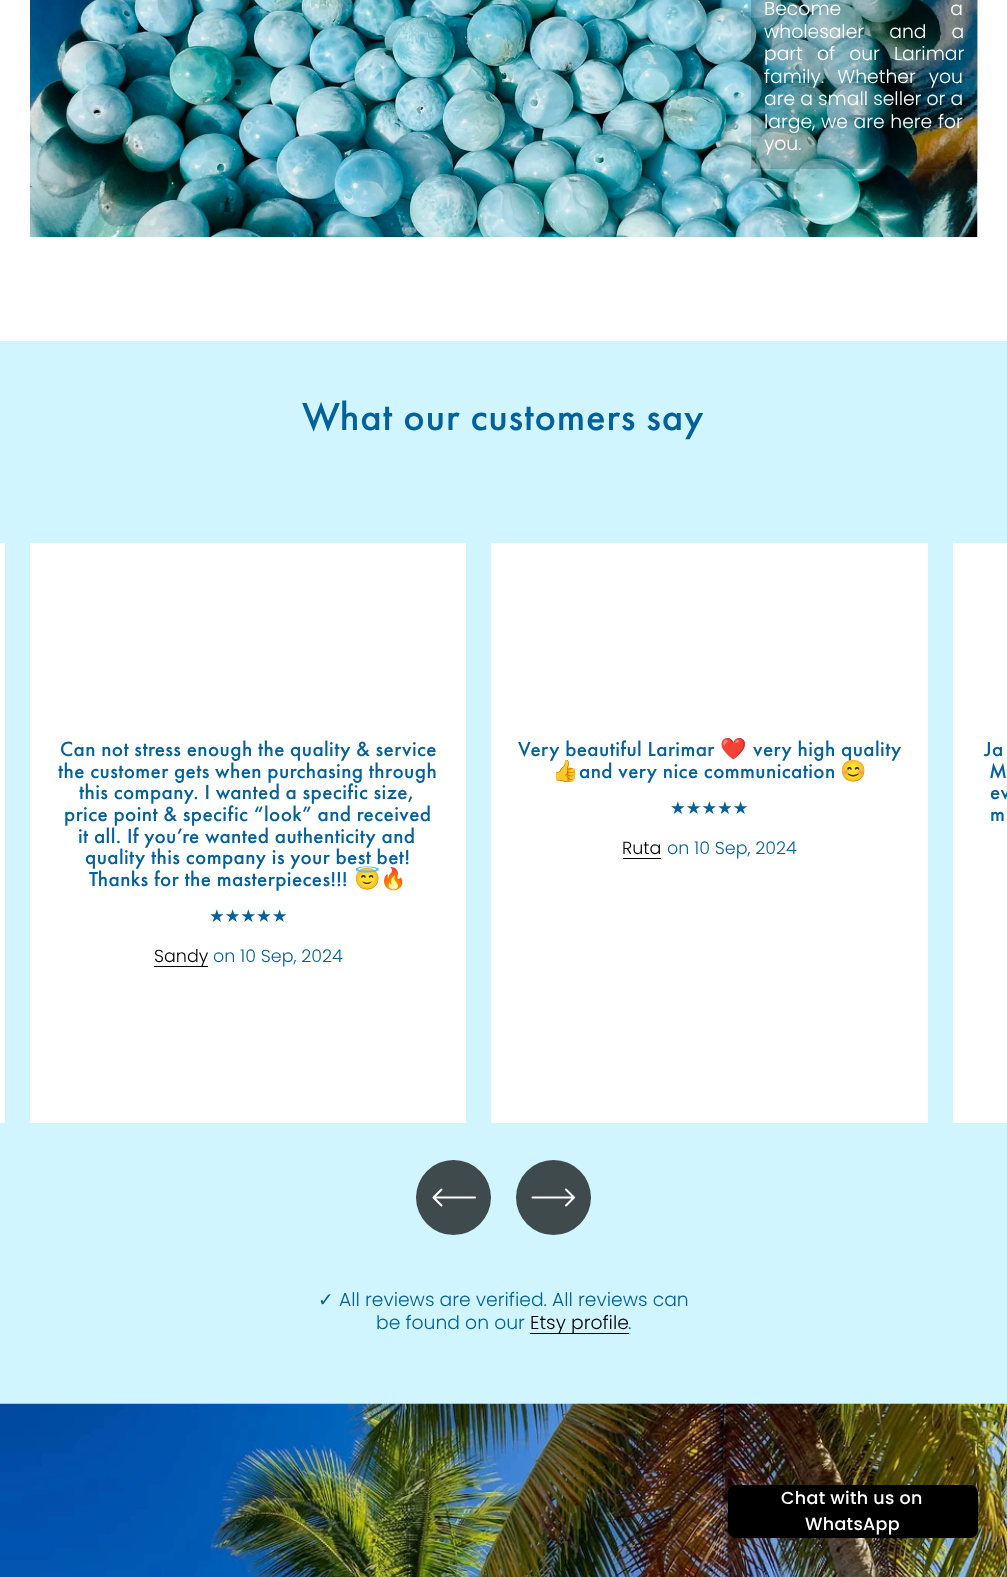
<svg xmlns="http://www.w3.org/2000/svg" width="1007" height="1577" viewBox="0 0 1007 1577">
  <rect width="100%" height="100%" fill="rgb(255,255,255)"/>
  <image x="30" y="0" width="948" height="238" href="pic1.png"/>
  <rect x="751" y="0" width="227" height="169" fill="rgba(0,0,0,0.17)"/>
  <g font-family="Poppins" font-size="18.75" font-weight="300" fill="rgb(255,255,255)">
    <text>
      <tspan x="764" y="15" word-spacing="104">Become a</tspan>
      <tspan x="764" y="38" word-spacing="20">wholesaler and a</tspan>
      <tspan x="764" y="60" word-spacing="9">part of our Larimar</tspan>
      <tspan x="764" y="83" word-spacing="8">family. Whether you</tspan>
      <tspan x="764" y="105">are a small seller or a</tspan>
      <tspan x="764" y="128" word-spacing="0.5">large, we are here for</tspan>
      <tspan x="764" y="150">you.</tspan>
    </text>
  </g>
  <rect x="0" y="341" width="1007" height="1063" fill="rgb(209,245,255)"/>
  <text x="302" y="430" font-family="Futura PT" font-size="40.5" font-weight="500" letter-spacing="0.8" fill="rgb(3,97,155)">What our customers say</text>
  <rect x="0" y="543" width="5" height="580" fill="rgb(255,255,255)"/>
  <rect x="30" y="543" width="436" height="580" fill="rgb(255,255,255)"/>
  <g font-family="Futura PT" font-size="21.2" font-weight="500" letter-spacing="0.4" fill="rgb(3,97,155)">
    <text x="60" y="756">Can not stress enough the quality &amp; service</text>
    <text x="58" y="778">the customer gets when purchasing through</text>
    <text x="79" y="799">this company. I wanted a specific size,</text>
    <text x="64" y="821">price point &amp; specific “look” and received</text>
    <text x="78" y="843">it all. If you’re wanted authenticity and</text>
    <text x="85" y="864">quality this company is your best bet!</text>
    <text x="89" y="886">Thanks for the masterpieces!!!</text>
  </g>
  <text x="354" y="886" font-family="Noto Color Emoji" font-size="21.2" letter-spacing="0.4" fill="rgb(3,97,155)">😇🔥</text>
  <text x="209" y="922" font-family="DejaVu Sans" font-size="17.5" fill="rgb(3,97,155)">★★★★★</text>
  <rect x="154" y="966" width="54" height="1" fill="rgb(0,0,0)"/>
  <text x="154" y="962" font-family="Poppins" font-size="17.5" font-weight="300" fill="rgb(0,0,0)">Sandy</text>
  <text x="213" y="962" font-family="Poppins" font-size="17.5" font-weight="300" fill="rgb(3,97,155)">on 10 Sep, 2024</text>
  <rect x="491" y="543" width="437" height="580" fill="rgb(255,255,255)"/>
  <text x="518" y="756" font-family="Futura PT" font-size="21.2" font-weight="500" letter-spacing="0.4" fill="rgb(3,97,155)">Very beautiful Larimar</text>
  <text x="720" y="756" font-family="Noto Color Emoji" font-size="21.2" letter-spacing="0.4" fill="rgb(3,97,155)">❤️</text>
  <text x="753" y="756" font-family="Futura PT" font-size="21.2" font-weight="500" letter-spacing="0.4" fill="rgb(3,97,155)">very high quality</text>
  <text x="552" y="778" font-family="Noto Color Emoji" font-size="21.2" letter-spacing="0.4" fill="rgb(3,97,155)">👍</text>
  <text x="579" y="778" font-family="Futura PT" font-size="21.2" font-weight="500" letter-spacing="0.4" fill="rgb(3,97,155)">and very nice communication</text>
  <text x="840" y="778" font-family="Noto Color Emoji" font-size="21.2" letter-spacing="0.4" fill="rgb(3,97,155)">😊</text>
  <text x="670" y="814" font-family="DejaVu Sans" font-size="17.5" fill="rgb(3,97,155)">★★★★★</text>
  <text x="622" y="854" font-family="Poppins" font-size="17.5" font-weight="300" fill="rgb(0,0,0)">Ruta</text>
  <rect x="623" y="858" width="38" height="1" fill="rgb(0,0,0)"/>
  <text x="667" y="854" font-family="Poppins" font-size="17.5" font-weight="300" fill="rgb(3,97,155)">on 10 Sep, 2024</text>
  <rect x="953" y="543" width="54" height="580" fill="rgb(255,255,255)"/>
  <g font-family="Futura PT" font-size="21.2" font-weight="500" letter-spacing="0.4" fill="rgb(3,97,155)">
    <text x="984" y="756">Ja</text>
    <text x="989" y="778">M</text>
    <text>
      <tspan x="990" y="799">ev</tspan>
      <tspan x="990" y="821">m</tspan>
    </text>
  </g>
  <circle cx="453.5" cy="1197.5" r="37.5" fill="rgb(63,74,77)"/>
  <path d="M441.5 1205.5L433.5 1197.5L441.5 1189.5M475 1197.5H434.5" fill="none" stroke="rgb(255,255,255)" stroke-width="2" stroke-linecap="round" stroke-linejoin="round"/>
  <circle cx="553.5" cy="1197.5" r="37.5" fill="rgb(63,74,77)"/>
  <path d="M566 1189.5L574 1197.5L566 1205.5M532.5 1197.5H573" fill="none" stroke="rgb(255,255,255)" stroke-width="2" stroke-linecap="round" stroke-linejoin="round"/>
  <text x="318" y="1306" font-family="DejaVu Sans" font-size="18.75" fill="rgb(3,97,155)">✓</text>
  <g font-family="Poppins" font-size="18.75" font-weight="300" fill="rgb(3,97,155)">
    <text x="339" y="1306">All reviews are verified. All reviews can</text>
    <text x="376" y="1329">be found on our</text>
  </g>
  <rect x="530" y="1333" width="99" height="1" fill="rgb(0,0,0)"/>
  <text x="530" y="1329" font-family="Poppins" font-size="18.75" font-weight="300" fill="rgb(0,0,0)">Etsy profile</text>
  <text x="628" y="1329" font-family="Poppins" font-size="18.75" font-weight="300" fill="rgb(3,97,155)">.</text>
  <image x="0" y="1403" width="1007" height="174" href="pic2.png"/>
  <rect x="728" y="1485" width="250" height="53" rx="8" fill="rgb(0,0,0)"/>
  <g font-family="Poppins" font-size="17.5" font-weight="500" letter-spacing="0.3" fill="rgb(255,255,255)">
    <text x="781" y="1504">Chat with us on</text>
    <text x="805" y="1530">WhatsApp</text>
  </g>
</svg>
